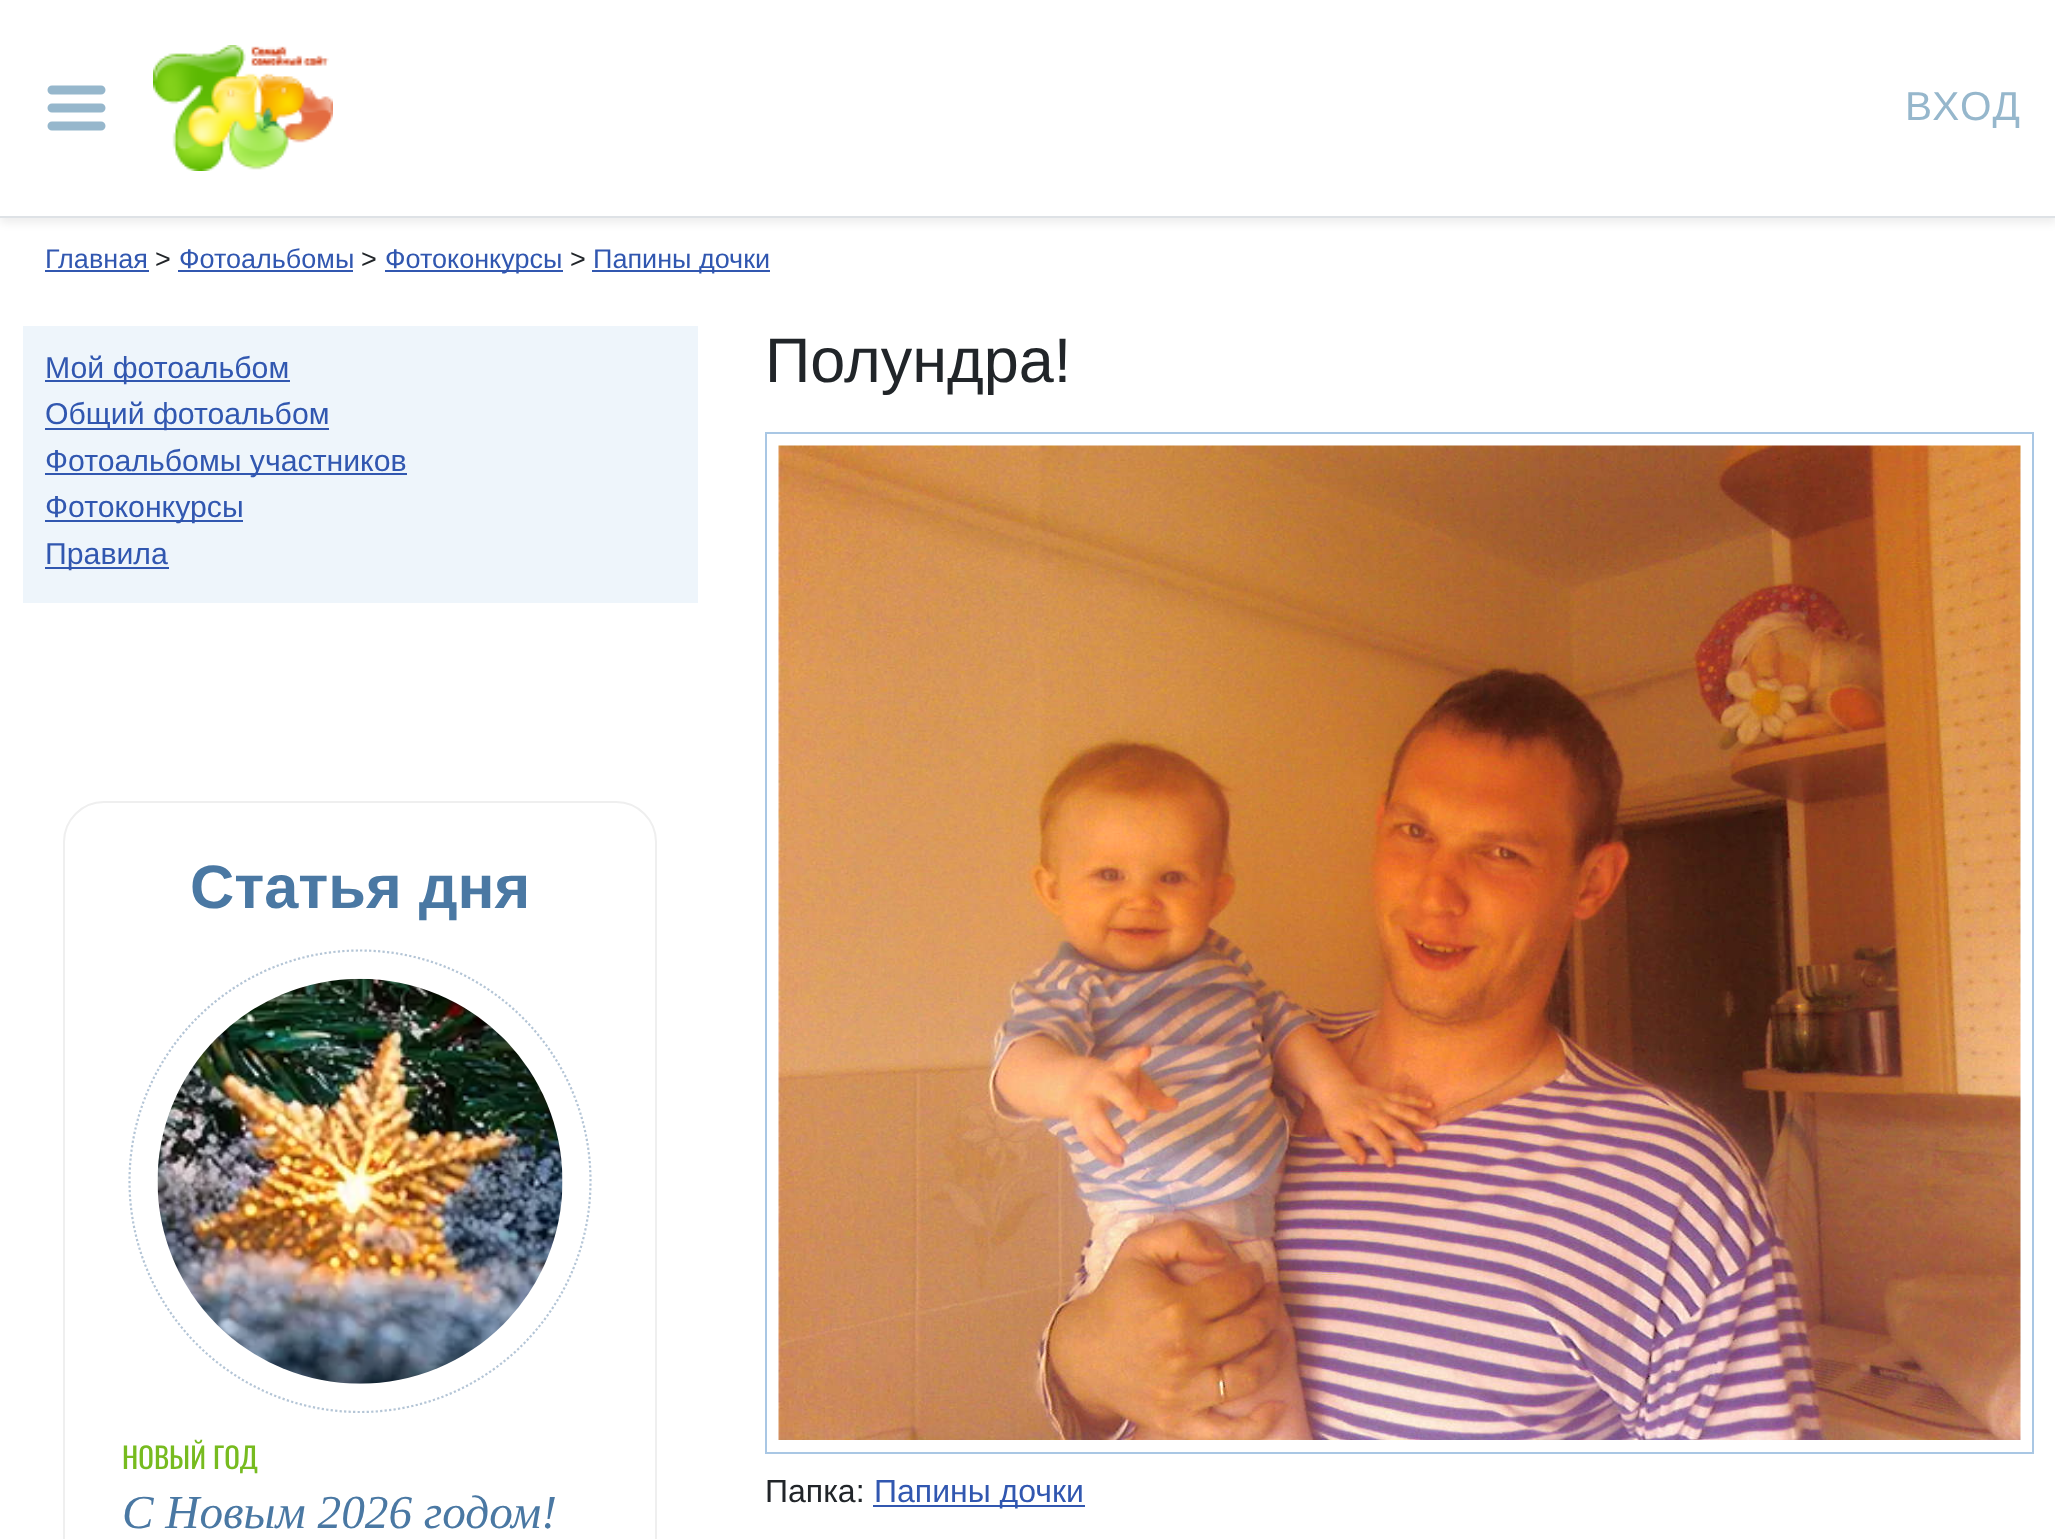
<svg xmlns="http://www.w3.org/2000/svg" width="2055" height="1539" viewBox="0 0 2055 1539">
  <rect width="100%" height="100%" fill="rgb(255,255,255)"/>
  <rect x="0" y="5" width="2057" height="218" fill="rgba(0,0,0,0.07)" filter="blur(4.5px)"/>
  <rect x="0" y="0" width="2055" height="216" fill="rgb(255,255,255)"/>
  <rect x="0" y="216" width="2055" height="2" fill="rgb(222,226,230)"/>
  <path d="M52 90H101M52 108H101M52 126H101" fill="none" stroke="rgb(150,183,204)" stroke-width="9" stroke-linecap="round"/>
  <image x="153" y="45" width="180" height="126" href="pic1.png"/>
  <text x="1905" y="120" font-family="Liberation Sans" font-size="40.5" letter-spacing="2" fill="rgb(150,183,204)">ВХОД</text>
  <text x="45" y="268" font-family="Liberation Sans" font-size="27" fill="rgb(49,87,176)">Главная</text>
  <rect x="45" y="270" width="104" height="2" fill="rgb(49,87,176)"/>
  <text x="155" y="268" font-family="Liberation Sans" font-size="27" fill="rgb(33,37,41)">&gt;</text>
  <text x="179" y="268" font-family="Liberation Sans" font-size="27" fill="rgb(49,87,176)">Фотоальбомы</text>
  <rect x="178" y="270" width="175" height="2" fill="rgb(49,87,176)"/>
  <text x="361" y="268" font-family="Liberation Sans" font-size="27" fill="rgb(33,37,41)">&gt;</text>
  <rect x="385" y="270" width="178" height="2" fill="rgb(49,87,176)"/>
  <text x="385" y="268" font-family="Liberation Sans" font-size="27" fill="rgb(49,87,176)">Фотоконкурсы</text>
  <text x="570" y="268" font-family="Liberation Sans" font-size="27" fill="rgb(33,37,41)">&gt;</text>
  <rect x="592" y="270" width="178" height="2" fill="rgb(49,87,176)"/>
  <text x="593" y="268" font-family="Liberation Sans" font-size="27" fill="rgb(49,87,176)">Папины дочки</text>
  <rect x="23" y="326" width="675" height="277" fill="rgb(238,245,251)"/>
  <rect x="45" y="380" width="245" height="2" fill="rgb(49,87,176)"/>
  <text x="45" y="378" font-family="Liberation Sans" font-size="30.25" fill="rgb(49,87,176)">Мой фотоальбом</text>
  <rect x="45" y="428" width="284" height="2" fill="rgb(49,87,176)"/>
  <text x="45" y="424" font-family="Liberation Sans" font-size="30.25" fill="rgb(49,87,176)">Общий фотоальбом</text>
  <rect x="45" y="473" width="362" height="2" fill="rgb(49,87,176)"/>
  <text x="45" y="471" font-family="Liberation Sans" font-size="30.25" fill="rgb(49,87,176)">Фотоальбомы участников</text>
  <rect x="45" y="520" width="198" height="2" fill="rgb(49,87,176)"/>
  <text x="45" y="517" font-family="Liberation Sans" font-size="30.25" fill="rgb(49,87,176)">Фотоконкурсы</text>
  <rect x="45" y="567" width="124" height="2" fill="rgb(49,87,176)"/>
  <text x="45" y="564" font-family="Liberation Sans" font-size="30.25" fill="rgb(49,87,176)">Правила</text>
  <rect x="64" y="802" width="592" height="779" rx="40" fill="none" stroke="rgb(239,239,239)" stroke-width="2"/>
  <text x="190" y="908" font-family="Liberation Sans" font-size="61.25" font-weight="bold" fill="rgb(74,120,163)">Статья дня</text>
  <path d="M360 950.5C487.5 950.5 590.5 1054 590.5 1181C590.5 1308.5 487.5 1412 360 1412C232.5 1412 129.5 1308.5 129.5 1181C129.5 1054 232.5 950.5 360 950.5Z" fill="none" stroke="rgb(180,197,214)" stroke-width="2.2" stroke-dasharray="2.25 2.25"/>
  <image x="157" y="978" width="406" height="406" href="pic2.png"/>
  <g font-family="Oswald" font-size="29" fill="rgb(119,187,31)">
    <text x="122" y="1469">НОВЫЙ</text>
    <text x="213" y="1469">ГОД</text>
  </g>
  <text x="122" y="1528" font-family="Liberation Serif" font-size="47.25" font-style="italic" fill="rgb(74,120,163)">С Новым 2026 годом!</text>
  <text x="765" y="382" font-family="Liberation Sans" font-size="63" fill="rgb(33,37,41)">Полундра!</text>
  <rect x="766" y="433" width="1267" height="1020" fill="none" stroke="rgb(169,199,228)" stroke-width="2"/>
  <image x="778" y="445" width="1243" height="995" href="pic3.png"/>
  <text x="765" y="1502" font-family="Liberation Sans" font-size="32" fill="rgb(33,37,41)">Папка:</text>
  <rect x="873" y="1505" width="212" height="2" fill="rgb(49,87,176)"/>
  <text x="874" y="1502" font-family="Liberation Sans" font-size="32" fill="rgb(49,87,176)">Папины дочки</text>
</svg>
